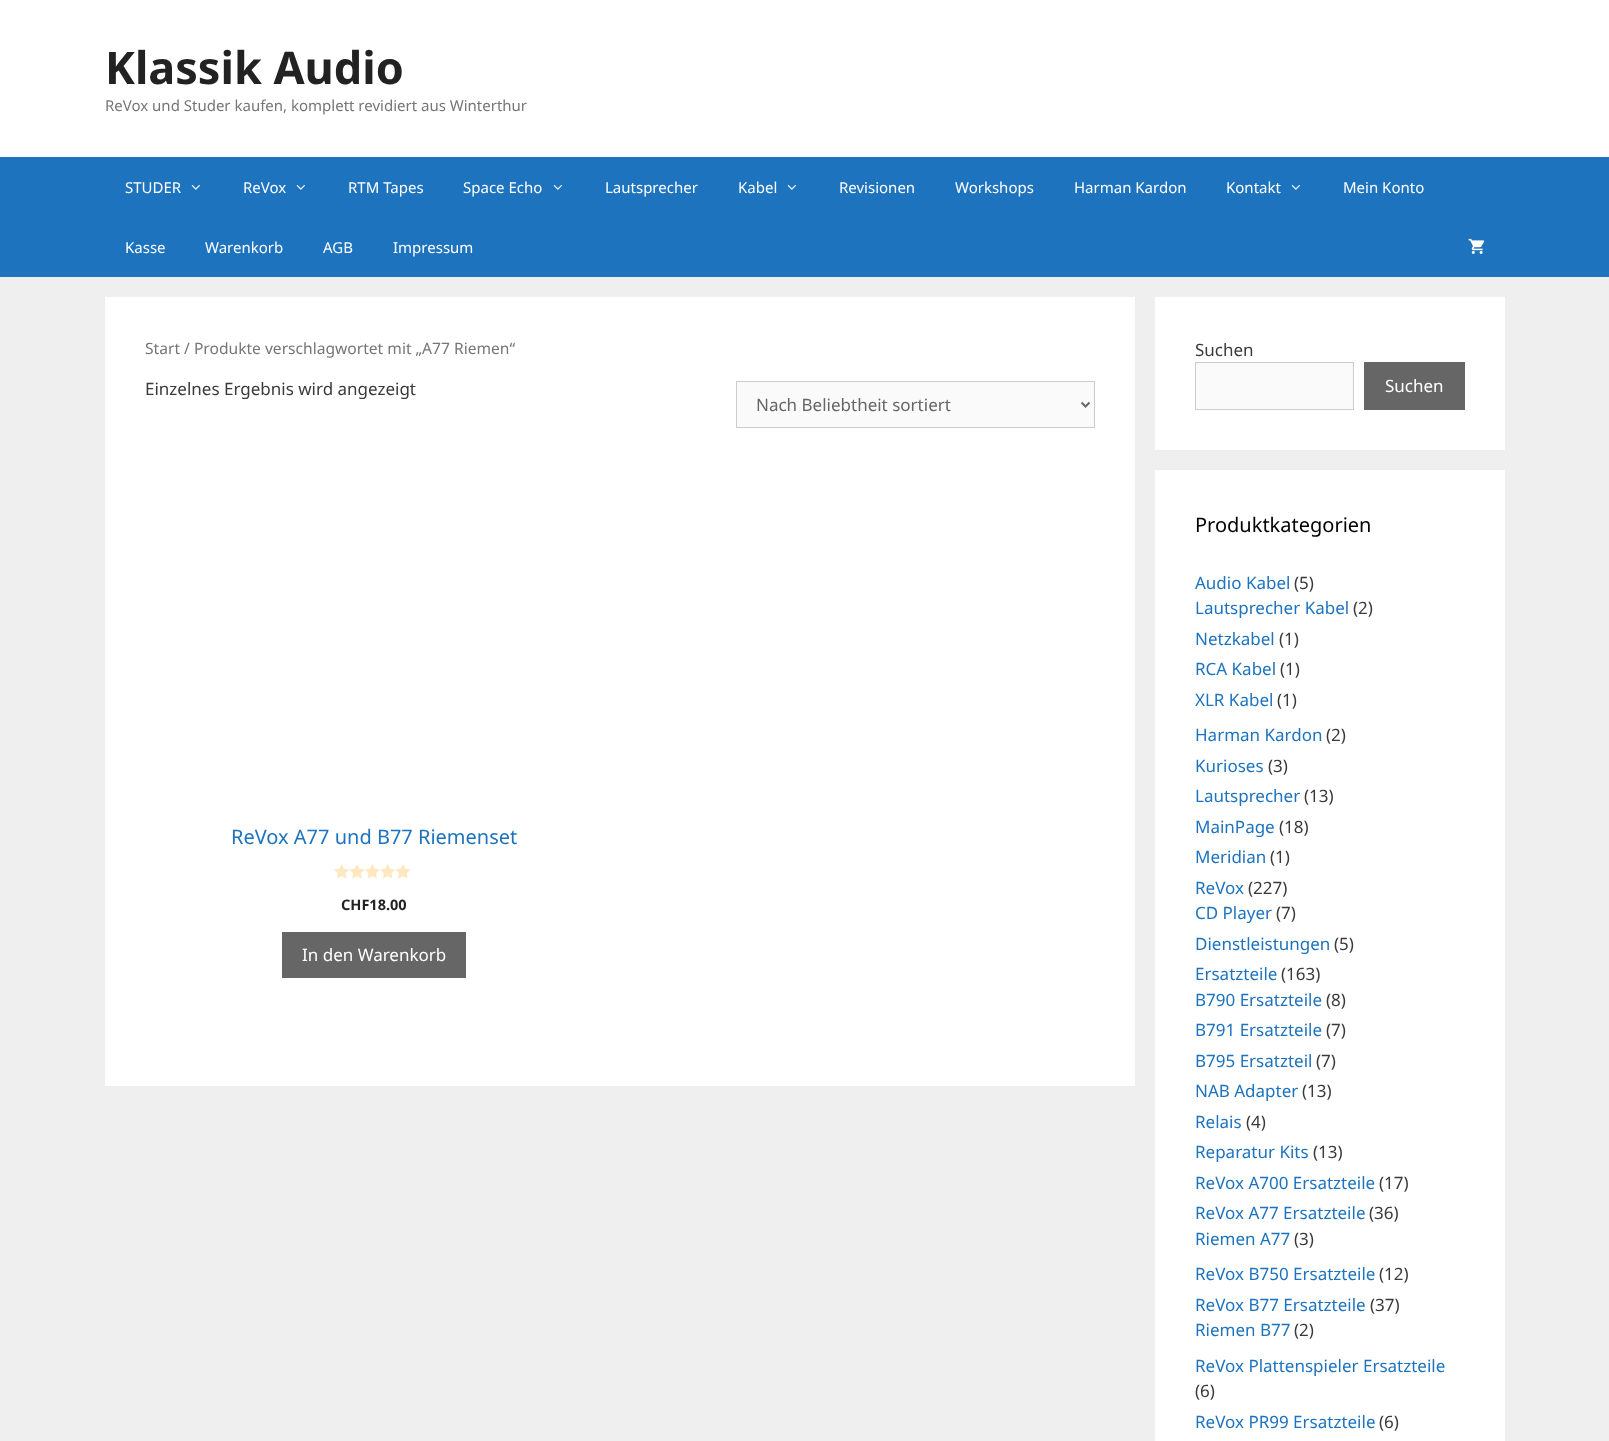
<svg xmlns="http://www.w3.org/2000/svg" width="1609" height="1441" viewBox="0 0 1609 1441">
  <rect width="100%" height="100%" fill="rgb(239,239,239)"/>
  <rect x="0" y="0" width="1609" height="157" fill="rgb(255,255,255)"/>
  <text x="105" y="84" font-family="Noto Sans" font-size="45" font-weight="bold" fill="rgb(34,34,34)">Klassik Audio</text>
  <text x="105" y="111" font-family="Noto Sans" font-size="15" fill="rgb(118,118,118)">ReVox und Studer kaufen, komplett revidiert aus Winterthur</text>
  <rect x="0" y="157" width="1609" height="120" fill="rgb(30,115,190)"/>
  <text x="125" y="193" font-family="Noto Sans" font-size="15" fill="rgb(255,255,255)">STUDER</text>
  <image x="191" y="185" width="9" height="5" href="pic1.png"/>
  <text x="243" y="193" font-family="Noto Sans" font-size="15" fill="rgb(255,255,255)">ReVox</text>
  <image x="296" y="185" width="9" height="5" href="pic1.png"/>
  <g font-family="Noto Sans" font-size="15" fill="rgb(255,255,255)">
    <text x="348" y="193">RTM Tapes</text>
    <text x="463" y="193">Space Echo</text>
  </g>
  <image x="553" y="185" width="9" height="5" href="pic1.png"/>
  <g font-family="Noto Sans" font-size="15" fill="rgb(255,255,255)">
    <text x="605" y="193">Lautsprecher</text>
    <text x="738" y="193">Kabel</text>
  </g>
  <image x="787" y="185" width="9" height="5" href="pic1.png"/>
  <g font-family="Noto Sans" font-size="15" fill="rgb(255,255,255)">
    <text x="839" y="193">Revisionen</text>
    <text x="955" y="193">Workshops</text>
    <text x="1074" y="193">Harman Kardon</text>
    <text x="1226" y="193">Kontakt</text>
  </g>
  <image x="1291" y="185" width="9" height="5" href="pic1.png"/>
  <g font-family="Noto Sans" font-size="15" fill="rgb(255,255,255)">
    <text x="1343" y="193">Mein Konto</text>
    <text x="125" y="253">Kasse</text>
    <text x="205" y="253">Warenkorb</text>
    <text x="323" y="253">AGB</text>
    <text x="393" y="253">Impressum</text>
  </g>
  <image x="1468" y="238" width="17" height="16" href="pic2.png"/>
  <rect x="105" y="297" width="1030" height="789" fill="rgb(255,255,255)"/>
  <text x="145" y="354" font-family="Noto Sans" font-size="15.6" fill="rgb(118,118,118)">Start / Produkte verschlagwortet mit „A77 Riemen“</text>
  <text x="145" y="395" font-family="Noto Sans" font-size="17" fill="rgb(58,58,58)">Einzelnes Ergebnis wird angezeigt</text>
  <rect x="736.5" y="381.5" width="358" height="46" fill="rgb(250,250,250)" stroke="rgb(204,204,204)"/>
  <path d="M1081.5 402.5L1085.5 406.5L1089.5 402.5" fill="none" stroke="rgb(102,102,102)" stroke-width="2"/>
  <text x="756" y="411" font-family="Noto Sans" font-size="17" fill="rgb(102,102,102)">Nach Beliebtheit sortiert</text>
  <text x="231" y="844" font-family="Noto Sans" font-size="20" fill="rgb(30,115,190)">ReVox A77 und B77 Riemenset</text>
  <image x="334" y="864" width="77" height="15" href="pic3.png"/>
  <text x="341" y="910" font-family="Noto Sans" font-size="14.5" font-weight="bold" fill="rgb(34,34,34)">CHF18.00</text>
  <rect x="282" y="932" width="184" height="46" fill="rgb(102,102,102)"/>
  <text x="302" y="961" font-family="Noto Sans" font-size="17" fill="rgb(255,255,255)">In den Warenkorb</text>
  <rect x="1155" y="297" width="350" height="153" fill="rgb(255,255,255)"/>
  <text x="1195" y="356" font-family="Noto Sans" font-size="17" fill="rgb(58,58,58)">Suchen</text>
  <rect x="1195.5" y="362.5" width="158" height="47" fill="rgb(250,250,250)" stroke="rgb(204,204,204)"/>
  <rect x="1364" y="362" width="101" height="48" fill="rgb(102,102,102)"/>
  <text x="1385" y="392" font-family="Noto Sans" font-size="17" fill="rgb(255,255,255)">Suchen</text>
  <rect x="1155" y="470" width="350" height="971" fill="rgb(255,255,255)"/>
  <text x="1195" y="532" font-family="Noto Sans" font-size="20" fill="rgb(0,0,0)">Produktkategorien</text>
  <text x="1195" y="589" font-family="Noto Sans" font-size="17" fill="rgb(30,115,190)">Audio Kabel</text>
  <text x="1294" y="589" font-family="Noto Sans" font-size="17" fill="rgb(58,58,58)">(5)</text>
  <text x="1195" y="614" font-family="Noto Sans" font-size="17" fill="rgb(30,115,190)">Lautsprecher Kabel</text>
  <text x="1353" y="614" font-family="Noto Sans" font-size="17" fill="rgb(58,58,58)">(2)</text>
  <text x="1195" y="645" font-family="Noto Sans" font-size="17" fill="rgb(30,115,190)">Netzkabel</text>
  <text x="1279" y="645" font-family="Noto Sans" font-size="17" fill="rgb(58,58,58)">(1)</text>
  <text x="1195" y="675" font-family="Noto Sans" font-size="17" fill="rgb(30,115,190)">RCA Kabel</text>
  <text x="1280" y="675" font-family="Noto Sans" font-size="17" fill="rgb(58,58,58)">(1)</text>
  <text x="1195" y="706" font-family="Noto Sans" font-size="17" fill="rgb(30,115,190)">XLR Kabel</text>
  <text x="1277" y="706" font-family="Noto Sans" font-size="17" fill="rgb(58,58,58)">(1)</text>
  <text x="1195" y="741" font-family="Noto Sans" font-size="17" fill="rgb(30,115,190)">Harman Kardon</text>
  <text x="1326" y="741" font-family="Noto Sans" font-size="17" fill="rgb(58,58,58)">(2)</text>
  <text x="1195" y="772" font-family="Noto Sans" font-size="17" fill="rgb(30,115,190)">Kurioses</text>
  <text x="1268" y="772" font-family="Noto Sans" font-size="17" fill="rgb(58,58,58)">(3)</text>
  <text x="1195" y="802" font-family="Noto Sans" font-size="17" fill="rgb(30,115,190)">Lautsprecher</text>
  <text x="1304" y="802" font-family="Noto Sans" font-size="17" fill="rgb(58,58,58)">(13)</text>
  <text x="1195" y="833" font-family="Noto Sans" font-size="17" fill="rgb(30,115,190)">MainPage</text>
  <text x="1279" y="833" font-family="Noto Sans" font-size="17" fill="rgb(58,58,58)">(18)</text>
  <text x="1195" y="863" font-family="Noto Sans" font-size="17" fill="rgb(30,115,190)">Meridian</text>
  <text x="1270" y="863" font-family="Noto Sans" font-size="17" fill="rgb(58,58,58)">(1)</text>
  <text x="1195" y="894" font-family="Noto Sans" font-size="17" fill="rgb(30,115,190)">ReVox</text>
  <text x="1248" y="894" font-family="Noto Sans" font-size="17" fill="rgb(58,58,58)">(227)</text>
  <text x="1195" y="919" font-family="Noto Sans" font-size="17" fill="rgb(30,115,190)">CD Player</text>
  <text x="1276" y="919" font-family="Noto Sans" font-size="17" fill="rgb(58,58,58)">(7)</text>
  <text x="1195" y="950" font-family="Noto Sans" font-size="17" fill="rgb(30,115,190)">Dienstleistungen</text>
  <text x="1334" y="950" font-family="Noto Sans" font-size="17" fill="rgb(58,58,58)">(5)</text>
  <text x="1195" y="980" font-family="Noto Sans" font-size="17" fill="rgb(30,115,190)">Ersatzteile</text>
  <text x="1281" y="980" font-family="Noto Sans" font-size="17" fill="rgb(58,58,58)">(163)</text>
  <text x="1195" y="1006" font-family="Noto Sans" font-size="17" fill="rgb(30,115,190)">B790 Ersatzteile</text>
  <text x="1326" y="1006" font-family="Noto Sans" font-size="17" fill="rgb(58,58,58)">(8)</text>
  <text x="1195" y="1036" font-family="Noto Sans" font-size="17" fill="rgb(30,115,190)">B791 Ersatzteile</text>
  <text x="1326" y="1036" font-family="Noto Sans" font-size="17" fill="rgb(58,58,58)">(7)</text>
  <text x="1195" y="1067" font-family="Noto Sans" font-size="17" fill="rgb(30,115,190)">B795 Ersatzteil</text>
  <text x="1316" y="1067" font-family="Noto Sans" font-size="17" fill="rgb(58,58,58)">(7)</text>
  <text x="1195" y="1097" font-family="Noto Sans" font-size="17" fill="rgb(30,115,190)">NAB Adapter</text>
  <text x="1302" y="1097" font-family="Noto Sans" font-size="17" fill="rgb(58,58,58)">(13)</text>
  <text x="1195" y="1128" font-family="Noto Sans" font-size="17" fill="rgb(30,115,190)">Relais</text>
  <text x="1246" y="1128" font-family="Noto Sans" font-size="17" fill="rgb(58,58,58)">(4)</text>
  <text x="1195" y="1158" font-family="Noto Sans" font-size="17" fill="rgb(30,115,190)">Reparatur Kits</text>
  <text x="1313" y="1158" font-family="Noto Sans" font-size="17" fill="rgb(58,58,58)">(13)</text>
  <text x="1195" y="1189" font-family="Noto Sans" font-size="17" fill="rgb(30,115,190)">ReVox A700 Ersatzteile</text>
  <text x="1379" y="1189" font-family="Noto Sans" font-size="17" fill="rgb(58,58,58)">(17)</text>
  <text x="1195" y="1219" font-family="Noto Sans" font-size="17" fill="rgb(30,115,190)">ReVox A77 Ersatzteile</text>
  <text x="1369" y="1219" font-family="Noto Sans" font-size="17" fill="rgb(58,58,58)">(36)</text>
  <text x="1195" y="1245" font-family="Noto Sans" font-size="17" fill="rgb(30,115,190)">Riemen A77</text>
  <text x="1294" y="1245" font-family="Noto Sans" font-size="17" fill="rgb(58,58,58)">(3)</text>
  <text x="1195" y="1280" font-family="Noto Sans" font-size="17" fill="rgb(30,115,190)">ReVox B750 Ersatzteile</text>
  <text x="1379" y="1280" font-family="Noto Sans" font-size="17" fill="rgb(58,58,58)">(12)</text>
  <text x="1195" y="1311" font-family="Noto Sans" font-size="17" fill="rgb(30,115,190)">ReVox B77 Ersatzteile</text>
  <text x="1370" y="1311" font-family="Noto Sans" font-size="17" fill="rgb(58,58,58)">(37)</text>
  <text x="1195" y="1336" font-family="Noto Sans" font-size="17" fill="rgb(30,115,190)">Riemen B77</text>
  <text x="1294" y="1336" font-family="Noto Sans" font-size="17" fill="rgb(58,58,58)">(2)</text>
  <text x="1195" y="1372" font-family="Noto Sans" font-size="17" fill="rgb(30,115,190)">ReVox Plattenspieler Ersatzteile</text>
  <text x="1195" y="1397" font-family="Noto Sans" font-size="17" fill="rgb(58,58,58)">(6)</text>
  <text x="1195" y="1428" font-family="Noto Sans" font-size="17" fill="rgb(30,115,190)">ReVox PR99 Ersatzteile</text>
  <text x="1379" y="1428" font-family="Noto Sans" font-size="17" fill="rgb(58,58,58)">(6)</text>
</svg>
